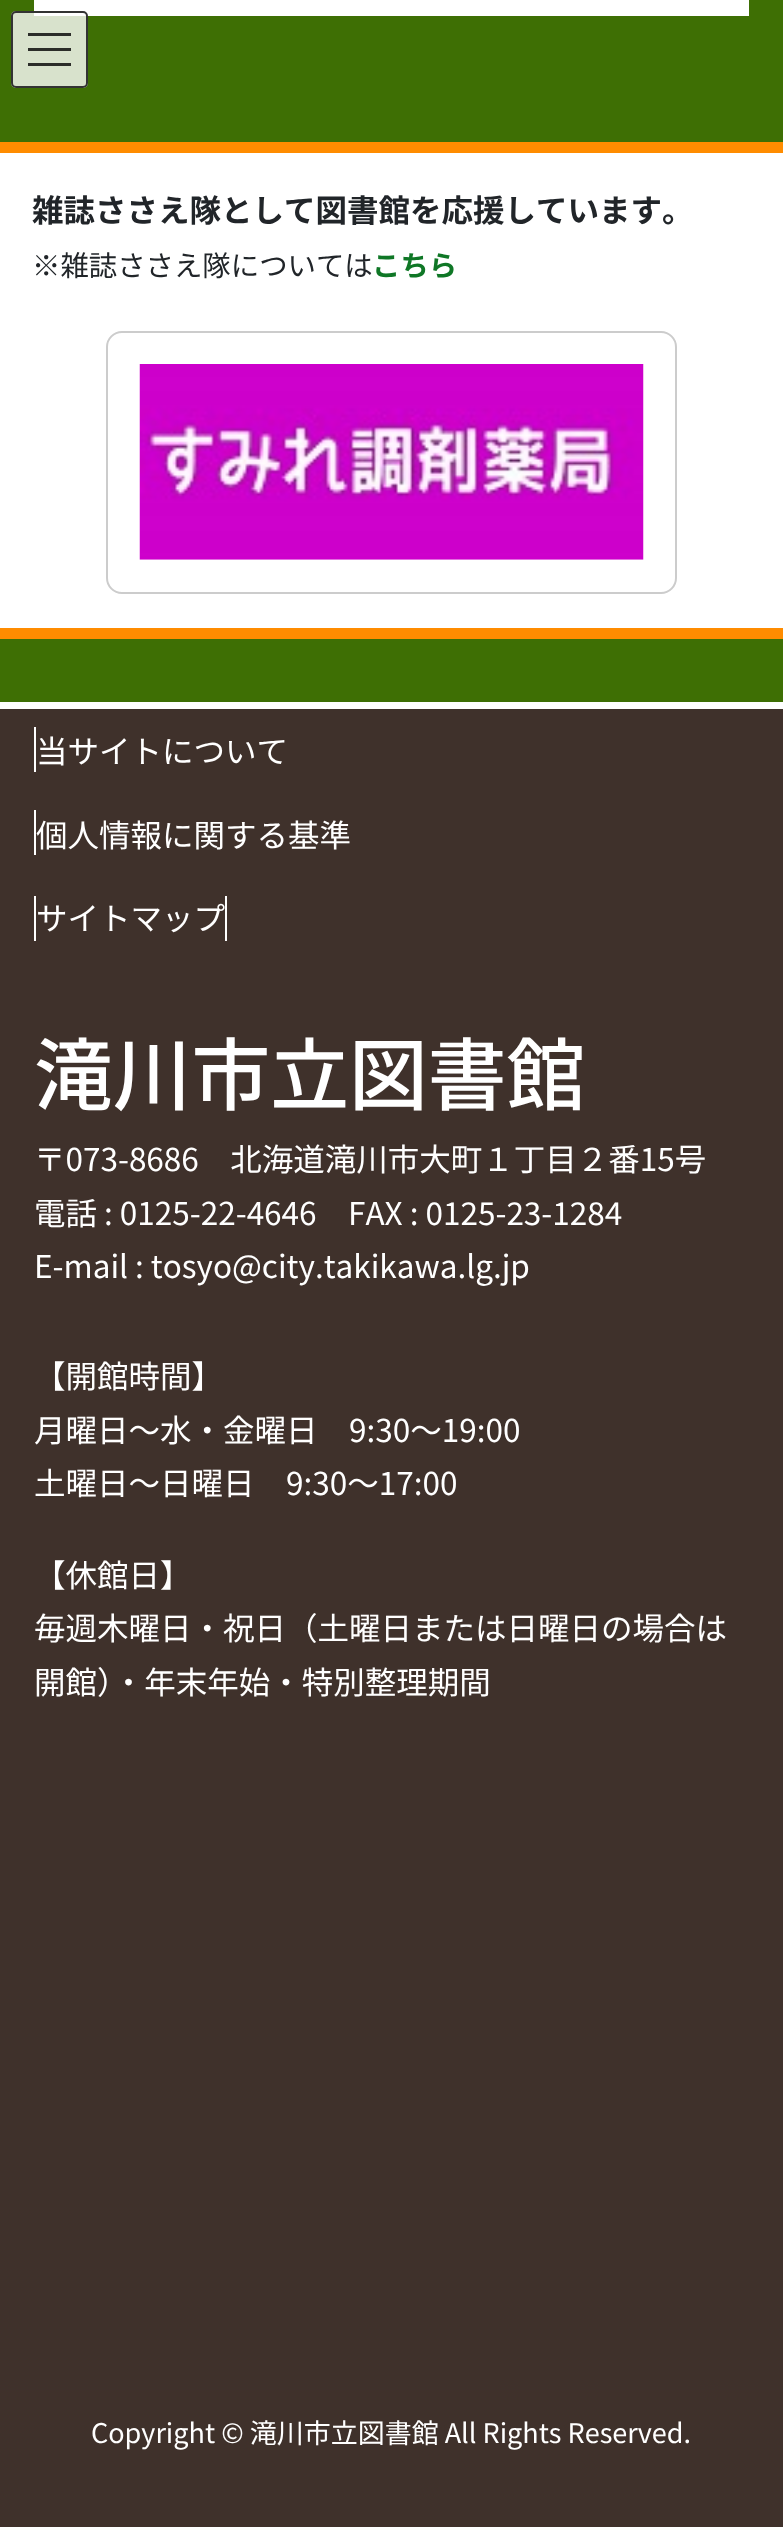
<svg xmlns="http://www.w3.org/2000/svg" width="783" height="2527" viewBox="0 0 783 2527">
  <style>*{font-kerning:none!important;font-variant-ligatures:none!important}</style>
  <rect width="100%" height="100%" fill="rgb(62,111,4)"/>
  <rect x="34" y="0" width="715" height="16" fill="rgb(255,255,255)"/>
  <rect x="11" y="11" width="77" height="77" rx="5" fill="rgba(255,255,255,0.8)"/>
  <rect x="28" y="33" width="43" height="3" fill="rgb(43,45,41)"/>
  <rect x="28" y="48" width="43" height="3" fill="rgb(43,45,41)"/>
  <rect x="28" y="63" width="43" height="3" fill="rgb(43,45,41)"/>
  <rect x="12" y="12" width="75" height="75" rx="4" fill="none" stroke="rgb(51,51,51)" stroke-width="2"/>
  <rect x="0" y="153" width="783" height="475" fill="rgb(255,255,255)"/>
  <rect x="0" y="142" width="783" height="11" fill="rgb(255,140,0)"/>
  <rect x="0" y="628" width="783" height="11" fill="rgb(255,140,0)"/>
  <text x="32" y="222" font-family="Noto Sans JP" font-size="31.5" font-weight="bold" fill="rgb(33,37,41)">雑誌ささえ隊として図書館を応援しています。</text>
  <text x="32" y="276" font-family="Noto Sans JP" font-size="28.4" fill="rgb(33,37,41)">※雑誌ささえ隊については</text>
  <text x="372" y="276" font-family="Noto Sans JP" font-size="28.4" font-weight="bold" fill="rgb(15,119,38)">こちら</text>
  <rect x="107" y="332" width="569" height="261" rx="15" fill="none" stroke="rgb(204,204,204)" stroke-width="2"/>
  <image x="139" y="364" width="505" height="196" href="pic1.png"/>
  <rect x="0" y="709" width="783" height="1818" fill="rgb(63,49,43)"/>
  <rect x="0" y="702" width="783" height="7" fill="rgb(255,255,255)"/>
  <text x="36" y="763" font-family="Noto Sans JP" font-size="31.5" fill="rgb(255,255,255)">当サイトについて</text>
  <rect x="34" y="727" width="2" height="45" fill="rgb(255,255,255)"/>
  <text x="36" y="847" font-family="Noto Sans JP" font-size="31.5" fill="rgb(255,255,255)">個人情報に関する基準</text>
  <rect x="34" y="810" width="2" height="45" fill="rgb(255,255,255)"/>
  <text x="36" y="930" font-family="Noto Sans JP" font-size="31.5" fill="rgb(255,255,255)">サイトマップ</text>
  <rect x="225" y="896" width="2" height="45" fill="rgb(255,255,255)"/>
  <rect x="34" y="896" width="2" height="45" fill="rgb(255,255,255)"/>
  <text x="34" y="1104" font-family="Noto Sans JP" font-size="78.75" font-weight="500" fill="rgb(255,255,255)">滝川市立図書館</text>
  <g font-family="Noto Sans JP" font-size="31.5" fill="rgb(255,255,255)">
    <text>
      <tspan x="34" y="1171">〒073-8686　北海道滝川市大町１丁目２番15号</tspan>
      <tspan x="34" y="1225">電話 : 0125-22-4646　FAX : 0125-23-1284</tspan>
      <tspan x="34" y="1278">E-mail : tosyo@city.takikawa.lg.jp</tspan>
    </text>
    <text>
      <tspan x="34" y="1388">【開館時間】</tspan>
      <tspan x="34" y="1442">月曜日～水・金曜日　9:30～19:00</tspan>
      <tspan x="34" y="1495">土曜日～日曜日　9:30～17:00</tspan>
    </text>
    <text>
      <tspan x="34" y="1587">【休館日】</tspan>
      <tspan x="34" y="1640">毎週木曜日・祝日（土曜日または日曜日の場合は</tspan>
      <tspan x="34" y="1694">開館）・年末年始・特別整理期間</tspan>
    </text>
  </g>
  <text x="91" y="2443" font-family="Noto Sans JP" font-size="27" fill="rgb(255,255,255)">Copyright © 滝川市立図書館 All Rights Reserved.</text>
</svg>
